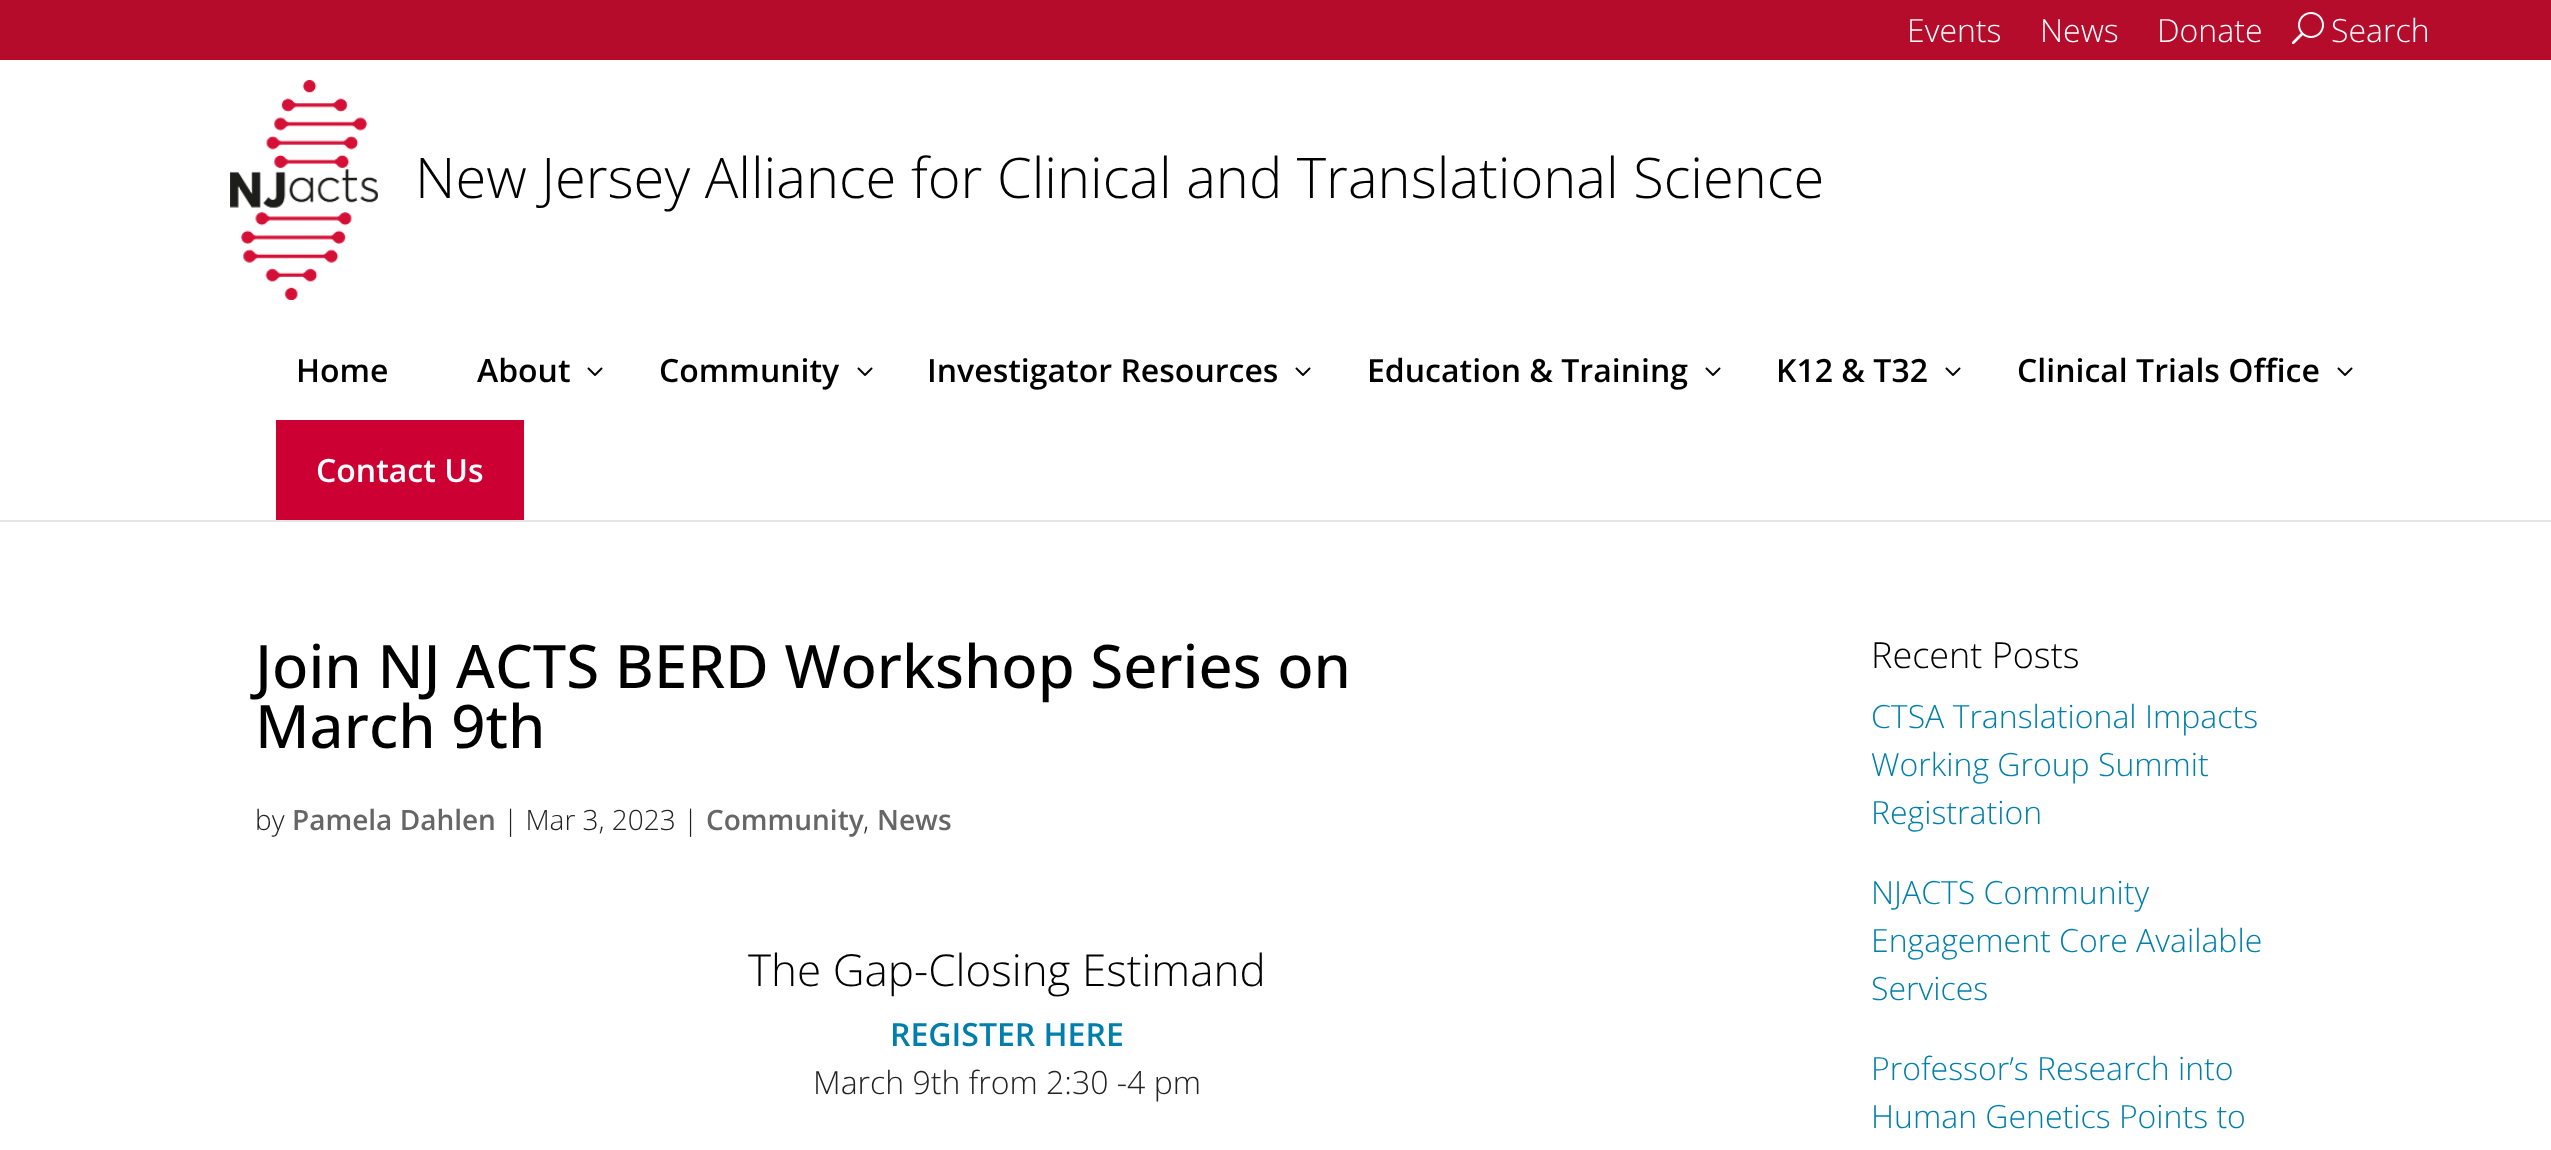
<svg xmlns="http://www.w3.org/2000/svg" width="2551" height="1150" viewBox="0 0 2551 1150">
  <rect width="100%" height="100%" fill="rgb(255,255,255)"/>
  <rect x="0" y="0" width="2551" height="60" fill="rgb(181,12,43)"/>
  <g font-family="Open Sans" font-size="32" font-weight="300" fill="rgb(255,255,255)">
    <text x="1907" y="42">Events</text>
    <text x="2040" y="42">News</text>
    <text x="2157" y="42">Donate</text>
  </g>
  <image x="2291" y="12" width="33" height="33" href="pic1.png"/>
  <text x="2331" y="42" font-family="Open Sans" font-size="32" font-weight="300" fill="rgb(255,255,255)">Search</text>
  <rect x="0" y="520" width="2551" height="2" fill="rgb(230,230,230)"/>
  <image x="230" y="80" width="148" height="220" href="pic2.png"/>
  <text x="415" y="198" font-family="Open Sans" font-size="56" font-weight="300" fill="rgb(0,0,0)">New Jersey Alliance for Clinical and Translational Science</text>
  <g font-family="Open Sans" font-size="32" font-weight="600" fill="rgb(0,0,0)">
    <text x="296" y="382">Home</text>
    <text x="477" y="382">About</text>
  </g>
  <image x="587" y="367" width="16" height="9" href="pic3.png"/>
  <text x="659" y="382" font-family="Open Sans" font-size="32" font-weight="600" fill="rgb(0,0,0)">Community</text>
  <image x="857" y="367" width="16" height="9" href="pic3.png"/>
  <text x="927" y="382" font-family="Open Sans" font-size="32" font-weight="600" fill="rgb(0,0,0)">Investigator Resources</text>
  <image x="1295" y="367" width="16" height="9" href="pic3.png"/>
  <text x="1367" y="382" font-family="Open Sans" font-size="32" font-weight="600" fill="rgb(0,0,0)">Education &amp; Training</text>
  <image x="1705" y="367" width="16" height="9" href="pic3.png"/>
  <text x="1776" y="382" font-family="Open Sans" font-size="32" font-weight="600" fill="rgb(0,0,0)">K12 &amp; T32</text>
  <image x="1945" y="367" width="16" height="9" href="pic3.png"/>
  <text x="2017" y="382" font-family="Open Sans" font-size="32" font-weight="600" fill="rgb(0,0,0)">Clinical Trials Office</text>
  <image x="2337" y="367" width="16" height="9" href="pic3.png"/>
  <rect x="276" y="420" width="248" height="100" fill="rgb(204,0,51)"/>
  <text x="316" y="482" font-family="Open Sans" font-size="32" font-weight="600" fill="rgb(255,255,255)">Contact Us</text>
  <g font-family="Open Sans" font-size="60" font-weight="500" fill="rgb(0,0,0)">
    <text>
      <tspan x="255" y="688">Join NJ ACTS BERD Workshop Series on</tspan>
      <tspan x="255" y="748">March 9th</tspan>
    </text>
  </g>
  <text x="255" y="830" font-family="Open Sans" font-size="28" font-weight="300" fill="rgb(34,34,34)">by</text>
  <text x="292" y="830" font-family="Open Sans" font-size="28" font-weight="600" fill="rgb(102,102,102)">Pamela Dahlen</text>
  <text x="503" y="830" font-family="Open Sans" font-size="28" font-weight="300" fill="rgb(34,34,34)">| Mar 3, 2023 |</text>
  <text x="706" y="830" font-family="Open Sans" font-size="28" font-weight="600" fill="rgb(102,102,102)">Community</text>
  <text x="863" y="830" font-family="Open Sans" font-size="28" font-weight="300" fill="rgb(34,34,34)">,</text>
  <text x="877" y="830" font-family="Open Sans" font-size="28" font-weight="600" fill="rgb(102,102,102)">News</text>
  <text x="748" y="986" font-family="Open Sans" font-size="44" font-weight="300" fill="rgb(0,0,0)">The Gap-Closing Estimand</text>
  <text x="890" y="1046" font-family="Open Sans" font-size="32" font-weight="600" fill="rgb(0,127,172)">REGISTER HERE</text>
  <text x="813" y="1094" font-family="Open Sans" font-size="32" font-weight="300" fill="rgb(34,34,34)">March 9th from 2:30 -4 pm</text>
  <text x="1871" y="668" font-family="Open Sans" font-size="36" font-weight="300" fill="rgb(0,0,0)">Recent Posts</text>
  <g font-family="Open Sans" font-size="32" font-weight="300" fill="rgb(0,127,172)">
    <text>
      <tspan x="1871" y="728">CTSA Translational Impacts</tspan>
      <tspan x="1871" y="776">Working Group Summit</tspan>
      <tspan x="1871" y="824">Registration</tspan>
    </text>
    <text>
      <tspan x="1871" y="904">NJACTS Community</tspan>
      <tspan x="1871" y="952">Engagement Core Available</tspan>
      <tspan x="1871" y="1000">Services</tspan>
    </text>
    <text>
      <tspan x="1871" y="1080">Professor’s Research into</tspan>
      <tspan x="1871" y="1128">Human Genetics Points to</tspan>
    </text>
  </g>
</svg>
